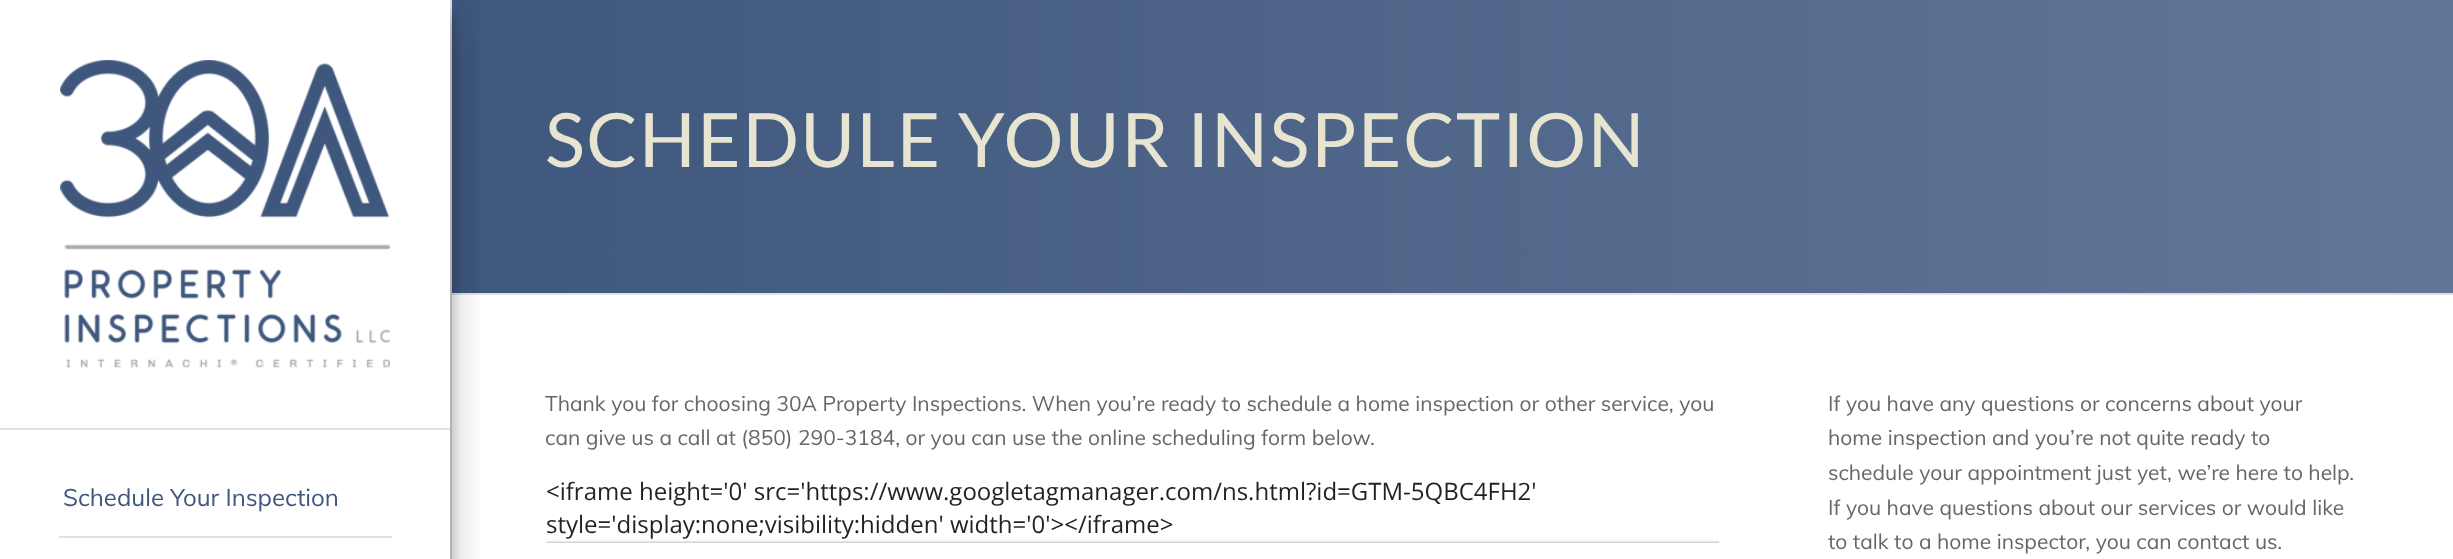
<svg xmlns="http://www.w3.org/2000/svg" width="2453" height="559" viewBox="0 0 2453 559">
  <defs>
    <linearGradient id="g1" gradientUnits="userSpaceOnUse" x1="452" y1="146" x2="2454" y2="146"><stop offset="0" stop-color="rgb(63,87,125)"/><stop offset="1" stop-color="rgb(98,119,152)"/></linearGradient>
    <clipPath id="clip1"><rect x="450" y="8" width="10" height="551"/></clipPath>
    <clipPath id="clip2"><rect x="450" y="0" width="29" height="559"/></clipPath>
  </defs>
  <rect width="100%" height="100%" fill="rgb(255,255,255)"/>
  <rect x="450" y="0" width="2" height="559" fill="rgb(225,225,225)"/>
  <rect x="452" y="0" width="2001" height="293" fill="url(#g1)"/>
  <rect x="452" y="293" width="2001" height="2" fill="rgb(225,225,225)"/>
  <g clip-path="url(#clip1)">
    <rect x="0" y="15" width="450" height="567" fill="rgba(0,0,0,0.22)" filter="blur(7.5px)"/>
  </g>
  <g clip-path="url(#clip2)">
    <rect x="0" y="21" width="450" height="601" fill="rgba(0,0,0,0.25)" filter="blur(21px)"/>
  </g>
  <rect x="0" y="428" width="450" height="2" fill="rgb(225,225,225)"/>
  <image x="60" y="60" width="330" height="308" href="pic1.png"/>
  <rect x="59" y="536" width="333" height="2" fill="rgb(225,225,225)"/>
  <text x="63" y="506" font-family="Muli" font-size="24" fill="rgb(63,87,125)">Schedule Your Inspection</text>
  <text x="545" y="167" font-family="Lato" font-size="75" letter-spacing="1.5" fill="rgb(231,228,209)">SCHEDULE YOUR INSPECTION</text>
  <g font-family="Muli" font-size="21" fill="rgb(102,102,102)">
    <text>
      <tspan x="545" y="411">Thank you for choosing 30A Property Inspections. When you’re ready to schedule a home inspection or other service, you</tspan>
      <tspan x="545" y="445">can give us a call at (850) 290-3184, or you can use the online scheduling form below.</tspan>
    </text>
  </g>
  <image x="546" y="481" width="1173" height="62" href="pic2.png"/>
  <g font-family="Muli" font-size="21" fill="rgb(102,102,102)">
    <text>
      <tspan x="1828" y="411">If you have any questions or concerns about your</tspan>
      <tspan x="1828" y="445">home inspection and you’re not quite ready to</tspan>
      <tspan x="1828" y="480">schedule your appointment just yet, we’re here to help.</tspan>
      <tspan x="1828" y="515">If you have questions about our services or would like</tspan>
      <tspan x="1828" y="549">to talk to a home inspector, you can contact us.</tspan>
    </text>
  </g>
</svg>
